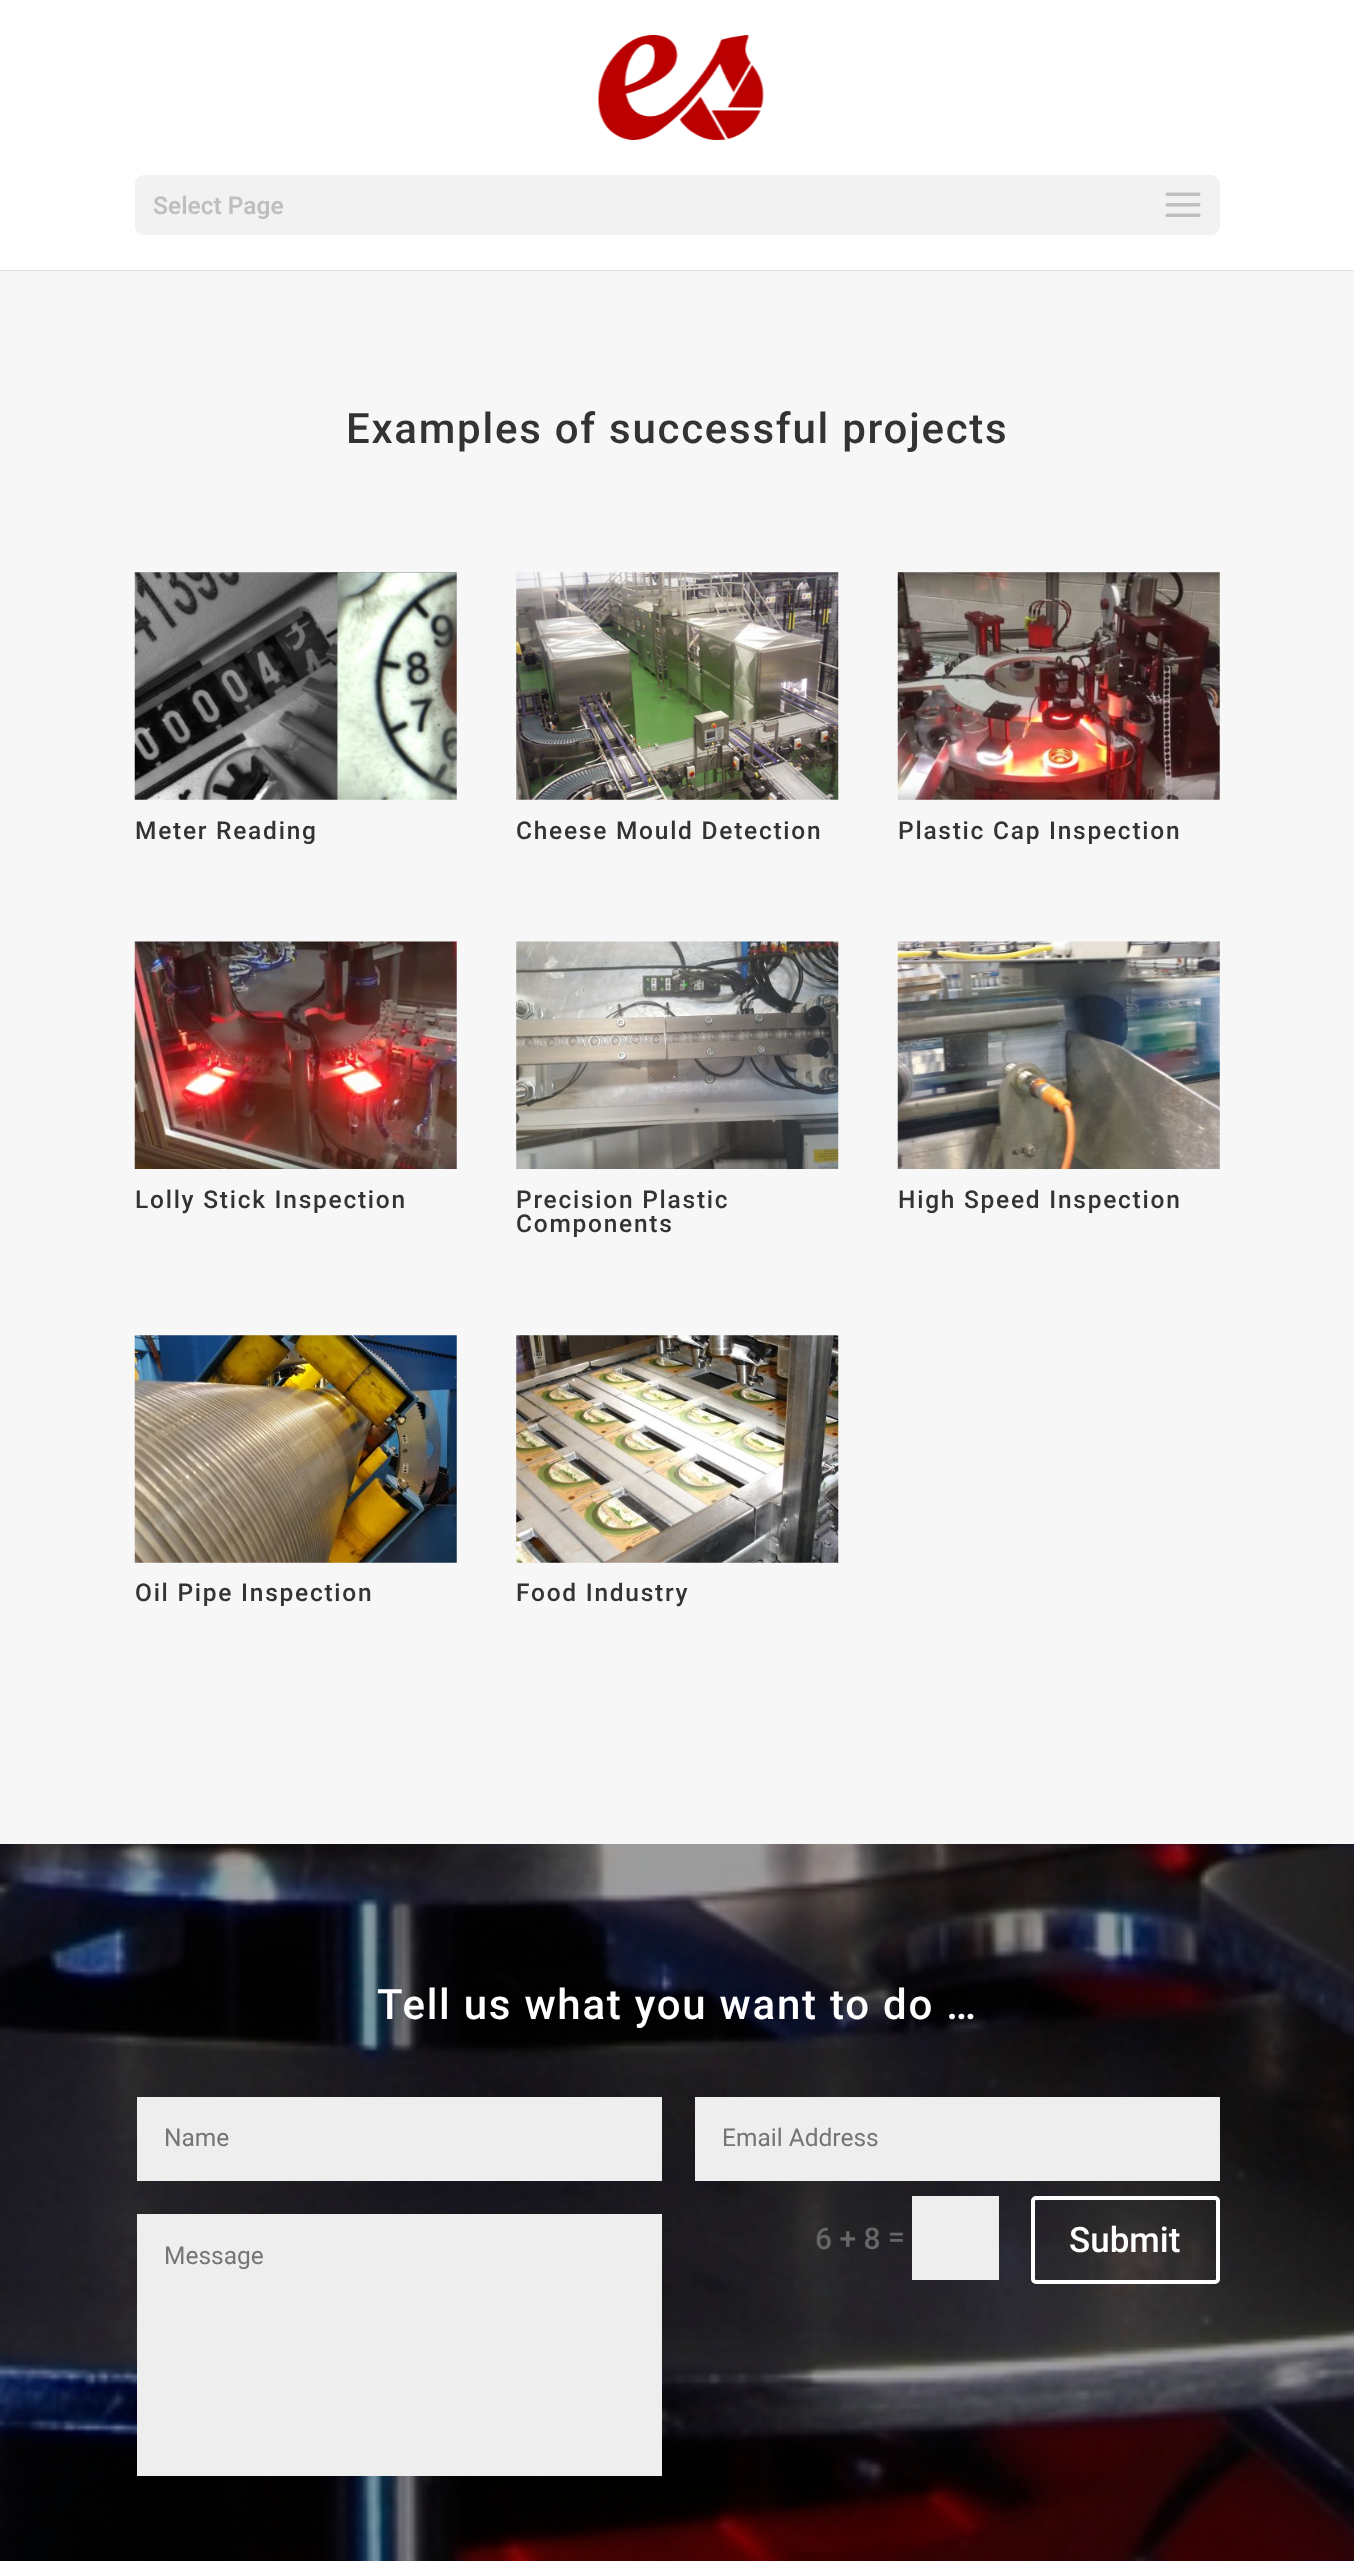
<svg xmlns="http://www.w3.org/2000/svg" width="1354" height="2561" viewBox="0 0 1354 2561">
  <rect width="100%" height="100%" fill="rgb(247,247,247)"/>
  <path d="M0 270V271H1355V2H1354V270Z" fill="rgb(222,222,222)"/>
  <rect x="0" y="0" width="1354" height="270" fill="rgb(255,255,255)"/>
  <image x="598" y="35" width="166" height="105" href="pic1.png"/>
  <rect x="135" y="175" width="1085" height="60" rx="9" fill="rgb(242,242,242)"/>
  <text x="153" y="214" font-family="Roboto" font-size="24.5" font-weight="600" fill="rgb(191,191,191)">Select Page</text>
  <image x="1165" y="192" width="36" height="25" href="pic2.png"/>
  <text x="346" y="443" font-family="Roboto" font-size="42" font-weight="500" letter-spacing="1.75" fill="rgb(51,51,51)">Examples of successful projects</text>
  <image x="134" y="572" width="323" height="228" href="pic3.png"/>
  <text x="135" y="839" font-family="Roboto" font-size="24.5" font-weight="500" letter-spacing="1.75" fill="rgb(51,51,51)">Meter Reading</text>
  <image x="516" y="572" width="323" height="228" href="pic4.png"/>
  <text x="516" y="839" font-family="Roboto" font-size="24.5" font-weight="500" letter-spacing="1.75" fill="rgb(51,51,51)">Cheese Mould Detection</text>
  <image x="897" y="572" width="323" height="228" href="pic5.png"/>
  <text x="898" y="839" font-family="Roboto" font-size="24.5" font-weight="500" letter-spacing="1.75" fill="rgb(51,51,51)">Plastic Cap Inspection</text>
  <image x="134" y="941" width="323" height="228" href="pic6.png"/>
  <text x="135" y="1208" font-family="Roboto" font-size="24.5" font-weight="500" letter-spacing="1.75" fill="rgb(51,51,51)">Lolly Stick Inspection</text>
  <image x="516" y="941" width="323" height="228" href="pic7.png"/>
  <g font-family="Roboto" font-size="24.5" font-weight="500" letter-spacing="1.75" fill="rgb(51,51,51)">
    <text>
      <tspan x="516" y="1208">Precision Plastic</tspan>
      <tspan x="516" y="1232">Components</tspan>
    </text>
  </g>
  <image x="897" y="941" width="323" height="228" href="pic8.png"/>
  <text x="898" y="1208" font-family="Roboto" font-size="24.5" font-weight="500" letter-spacing="1.75" fill="rgb(51,51,51)">High Speed Inspection</text>
  <image x="134" y="1335" width="323" height="228" href="pic9.png"/>
  <text x="135" y="1601" font-family="Roboto" font-size="24.5" font-weight="500" letter-spacing="1.75" fill="rgb(51,51,51)">Oil Pipe Inspection</text>
  <image x="516" y="1335" width="323" height="228" href="pic10.png"/>
  <text x="516" y="1601" font-family="Roboto" font-size="24.5" font-weight="500" letter-spacing="1.75" fill="rgb(51,51,51)">Food Industry</text>
  <image x="0" y="1844" width="1354" height="717" href="pic11.png"/>
  <text x="377" y="2019" font-family="Roboto" font-size="42" font-weight="500" letter-spacing="1.75" fill="rgb(255,255,255)">Tell us what you want to do …</text>
  <rect x="137" y="2097" width="525" height="84" fill="rgb(238,238,238)"/>
  <text x="164" y="2146" font-family="Roboto" font-size="24.5" fill="rgb(117,117,117)">Name</text>
  <rect x="695" y="2097" width="525" height="84" fill="rgb(238,238,238)"/>
  <text x="722" y="2146" font-family="Roboto" font-size="24.5" fill="rgb(117,117,117)">Email Address</text>
  <g font-family="Roboto" font-size="30" font-weight="500" fill="rgb(102,102,102)">
    <text x="815" y="2249">6 + 8</text>
    <text x="888" y="2247">=</text>
  </g>
  <rect x="912" y="2196" width="87" height="84" fill="rgb(238,238,238)"/>
  <rect x="1033" y="2198" width="185" height="84" rx="3" fill="none" stroke="rgb(255,255,255)" stroke-width="4"/>
  <text x="1069" y="2252" font-family="Roboto" font-size="35" font-weight="500" fill="rgb(255,255,255)">Submit</text>
  <rect x="137" y="2214" width="525" height="262" fill="rgb(238,238,238)"/>
  <text x="164" y="2264" font-family="Roboto" font-size="24.5" fill="rgb(117,117,117)">Message</text>
</svg>
